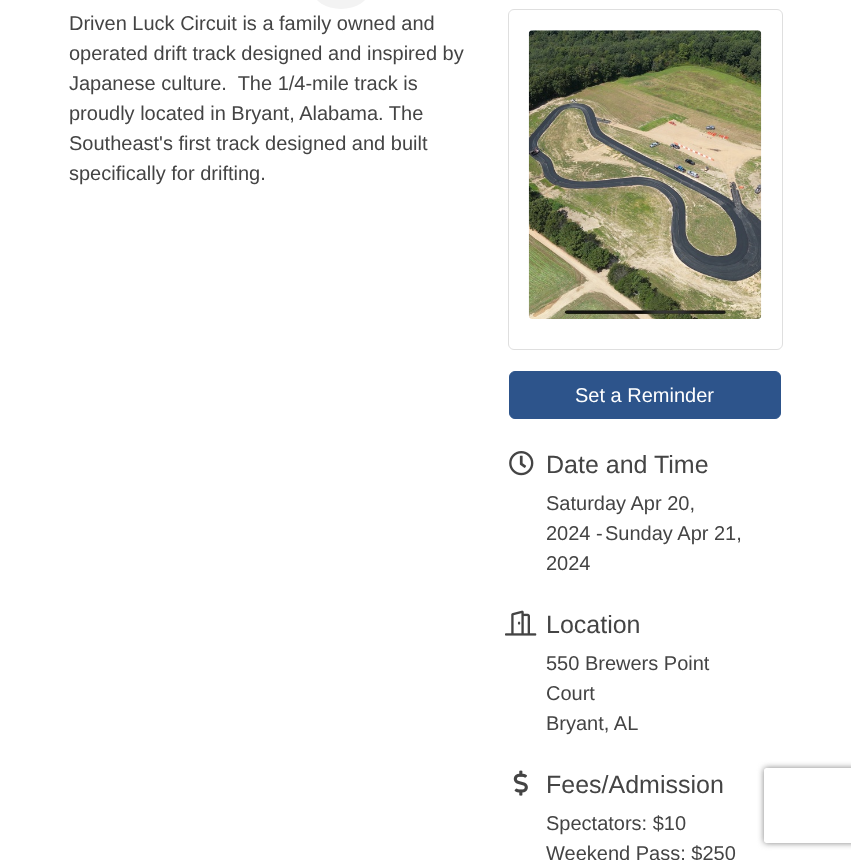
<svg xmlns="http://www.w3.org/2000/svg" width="851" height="860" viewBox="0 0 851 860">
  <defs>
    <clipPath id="clip1"><path d="M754 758H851V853H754ZM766.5 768H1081.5C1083 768 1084 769 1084 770.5V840.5C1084 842 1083 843 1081.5 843H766.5C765 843 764 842 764 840.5V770.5C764 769 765 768 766.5 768Z" clip-rule="evenodd"/></clipPath>
  </defs>
  <rect width="100%" height="100%" fill="rgb(255,255,255)"/>
  <rect x="313" y="-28" width="56" height="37" rx="28" fill="rgb(243,243,243)"/>
  <g font-family="Liberation Sans" font-size="20" fill="rgb(68,68,68)">
    <text xml:space="preserve"><tspan x="69" y="30">Driven Luck Circuit is a family owned and</tspan><tspan x="69" y="60">operated drift track designed and inspired by</tspan><tspan x="69" y="90">Japanese culture.  The 1/4-mile track is</tspan><tspan x="69" y="120">proudly located in Bryant, Alabama. The</tspan><tspan x="69" y="150">Southeast's first track designed and built</tspan><tspan x="69" y="180">specifically for drifting.</tspan></text>
  </g>
  <rect x="508.5" y="9.5" width="274" height="340" rx="5.5" fill="none" stroke="rgb(223,223,223)"/>
  <image x="528" y="30" width="234" height="289" href="pic1.png"/>
  <rect x="509.5" y="371.5" width="271" height="47" rx="5.5" fill="rgb(45,84,139)" stroke="rgb(45,84,139)"/>
  <text x="575" y="402" font-family="Liberation Sans" font-size="20" fill="rgb(255,255,255)">Set a Reminder</text>
  <image x="509" y="451" width="25" height="25" href="pic2.png"/>
  <text x="546" y="473" font-family="Liberation Sans" font-size="25" fill="rgb(68,68,68)">Date and Time</text>
  <g font-family="Liberation Sans" font-size="20" fill="rgb(68,68,68)">
    <text>
      <tspan x="546" y="510">Saturday Apr 20,</tspan>
      <tspan x="546" y="540">2024 -</tspan>
    </text>
    <text x="605" y="540">Sunday Apr 21,</text>
    <text x="546" y="570">2024</text>
  </g>
  <image x="505" y="610" width="32" height="26" href="pic3.png"/>
  <text x="546" y="633" font-family="Liberation Sans" font-size="25" fill="rgb(68,68,68)">Location</text>
  <g font-family="Liberation Sans" font-size="20" fill="rgb(68,68,68)">
    <text>
      <tspan x="546" y="670">550 Brewers Point</tspan>
      <tspan x="546" y="700">Court</tspan>
      <tspan x="546" y="730">Bryant, AL</tspan>
    </text>
  </g>
  <image x="513" y="770" width="15" height="26" href="pic4.png"/>
  <text x="546" y="793" font-family="Liberation Sans" font-size="25" fill="rgb(68,68,68)">Fees/Admission</text>
  <g font-family="Liberation Sans" font-size="20" fill="rgb(68,68,68)">
    <text>
      <tspan x="546" y="830">Spectators: $10</tspan>
      <tspan x="546" y="860">Weekend Pass: $250</tspan>
    </text>
  </g>
  <g clip-path="url(#clip1)">
    <rect x="764" y="768" width="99" height="75" rx="2.5" fill="rgb(128,128,128)" filter="blur(3px)"/>
  </g>
</svg>
